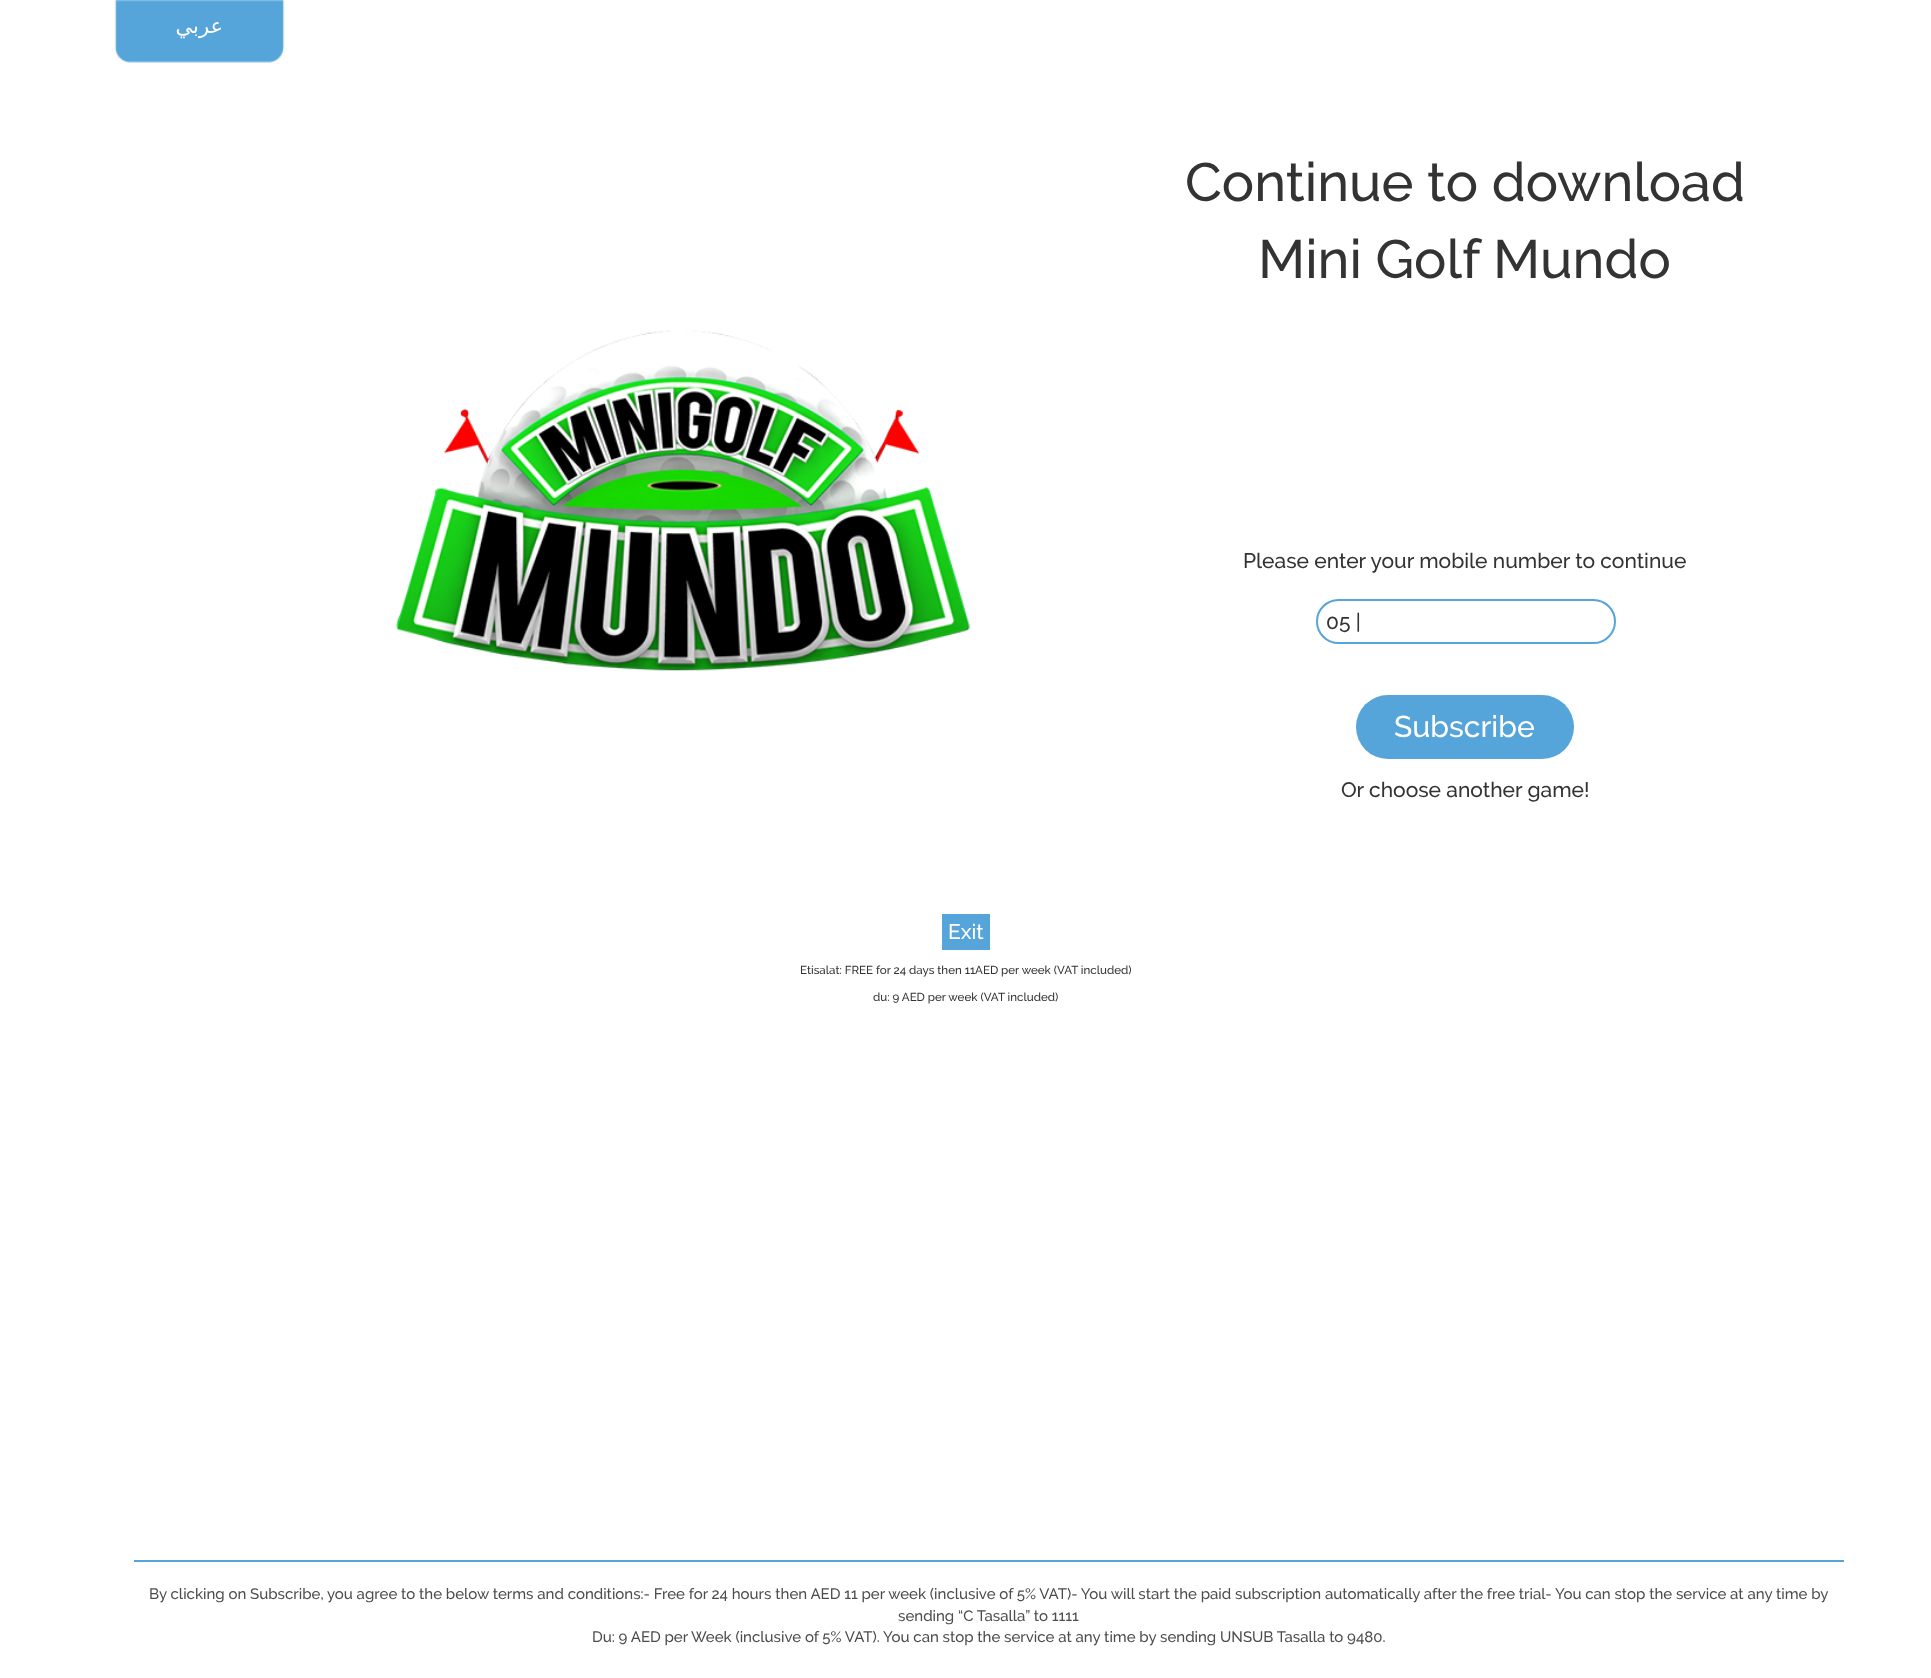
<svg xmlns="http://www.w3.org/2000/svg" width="1931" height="1678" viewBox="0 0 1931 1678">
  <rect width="100%" height="100%" fill="rgb(255,255,255)"/>
  <image x="114" y="0" width="171" height="63" href="pic1.png"/>
  <text x="223" y="33" font-family="DejaVu Sans" font-size="21" direction="rtl" fill="rgb(255,255,255)">عربي</text>
  <image x="396" y="330" width="574" height="341" href="pic2.png"/>
  <g font-family="Raleway" font-size="54" font-weight="500" fill="rgb(51,51,51)">
    <text x="1185" y="201">Continue to download</text>
    <text x="1258" y="278">Mini Golf Mundo</text>
  </g>
  <text x="1243" y="568" font-family="Raleway" font-size="21" font-weight="500" fill="rgb(51,51,51)">Please enter your mobile number to continue</text>
  <rect x="1317" y="600" width="298" height="43" rx="21.5" fill="none" stroke="rgb(85,164,218)" stroke-width="2"/>
  <text x="1326" y="629" font-family="Raleway" font-size="21" font-weight="500" fill="rgb(51,51,51)">05 |</text>
  <rect x="1356" y="695" width="218" height="64" rx="32" fill="rgb(85,164,218)"/>
  <text x="1394" y="737" font-family="Raleway" font-size="30" font-weight="500" fill="rgb(255,255,255)">Subscribe</text>
  <text x="1341" y="797" font-family="Raleway" font-size="21" font-weight="500" fill="rgb(51,51,51)">Or choose another game!</text>
  <rect x="942" y="914" width="48" height="36" fill="rgb(85,164,218)"/>
  <text x="948" y="939" font-family="Raleway" font-size="21" font-weight="500" fill="rgb(255,255,255)">Exit</text>
  <g font-family="Raleway" font-size="11.55" font-weight="500" fill="rgb(51,51,51)">
    <text x="800" y="974">Etisalat: FREE for 24 days then 11AED per week (VAT included)</text>
    <text x="873" y="1001">du: 9 AED per week (VAT included)</text>
  </g>
  <rect x="134" y="1560" width="1710" height="2" fill="rgb(85,164,218)"/>
  <g font-family="Raleway" font-size="15" font-weight="500" fill="rgb(76,76,78)">
    <text x="149" y="1599">By clicking on Subscribe, you agree to the below terms and conditions:- Free for 24 hours then AED 11 per week (inclusive of 5% VAT)- You will start the paid subscription automatically after the free trial- You can stop the service at any time by</text>
    <text x="898" y="1621">sending “C Tasalla” to 1111</text>
    <text x="592" y="1642">Du: 9 AED per Week (inclusive of 5% VAT). You can stop the service at any time by sending UNSUB Tasalla to 9480.</text>
  </g>
</svg>
